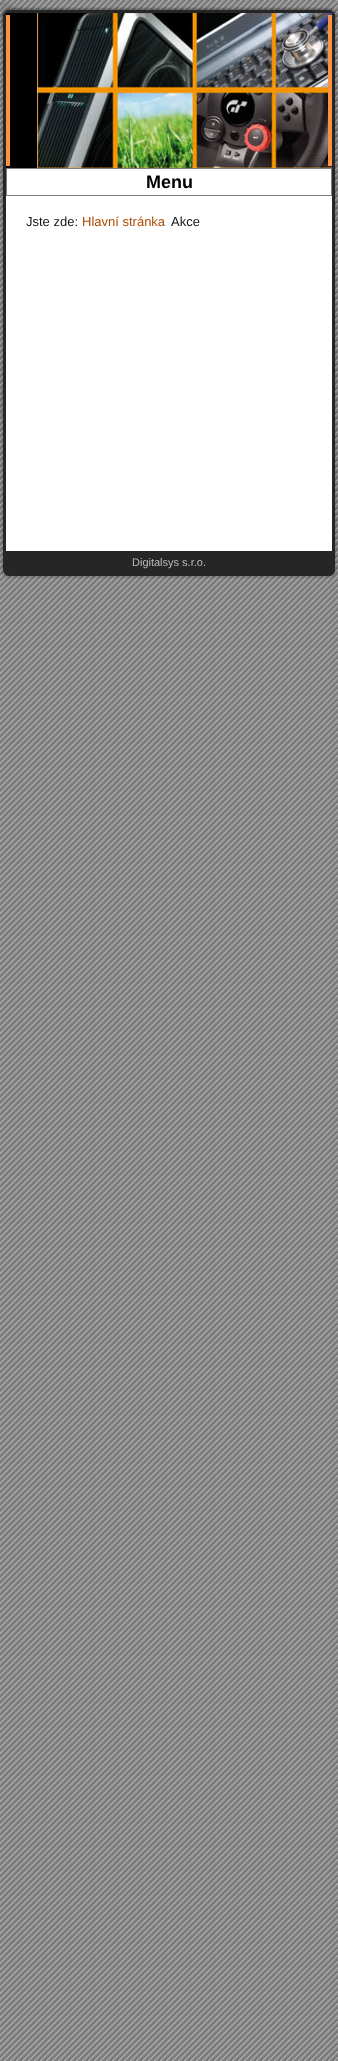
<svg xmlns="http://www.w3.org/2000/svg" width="338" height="2061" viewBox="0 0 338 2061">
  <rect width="100%" height="100%" fill="rgb(255,255,255)"/>
  <image x="0" y="0" width="338" height="2061" href="pic1.png"/>
  <image x="0" y="2" width="338" height="414" href="pic2.png"/>
  <image x="0" y="7" width="319" height="572" href="pic3.png"/>
  <image x="0" y="7" width="319" height="19" href="pic4.png"/>
  <image x="332" y="26" width="6" height="534" href="pic10.png"/>
  <image x="319" y="7" width="19" height="572" href="pic5.png"/>
  <image x="319" y="7" width="19" height="19" href="pic6.png"/>
  <image x="0" y="26" width="6" height="534" href="pic7.png"/>
  <image x="6" y="13" width="326" height="155" href="pic8.png"/>
  <image x="10" y="13" width="318" height="155" href="pic9.png"/>
  <rect x="6.5" y="168.5" width="325" height="27" fill="rgb(255,255,255)" stroke="rgb(128,128,128)"/>
  <text x="146" y="188" font-family="Liberation Sans" font-size="18" font-weight="bold" fill="rgb(0,0,0)">Menu</text>
  <rect x="6" y="196" width="326" height="355" fill="rgb(255,255,255)"/>
  <text x="26" y="226" font-family="Liberation Sans" font-size="13" fill="rgb(20,20,20)">Jste zde:</text>
  <text x="82" y="226" font-family="Liberation Sans" font-size="13" fill="rgb(172,75,2)">Hlavní stránka</text>
  <text x="171" y="226" font-family="Liberation Sans" font-size="13" fill="rgb(20,20,20)">Akce</text>
  <rect x="6" y="551" width="326" height="18" fill="rgb(38,38,38)"/>
  <text x="132" y="566" font-family="Liberation Sans" font-size="11" fill="rgb(189,189,189)">Digitalsys s.r.o.</text>
  <rect x="6" y="569" width="326" height="4" fill="rgb(38,38,38)"/>
</svg>
